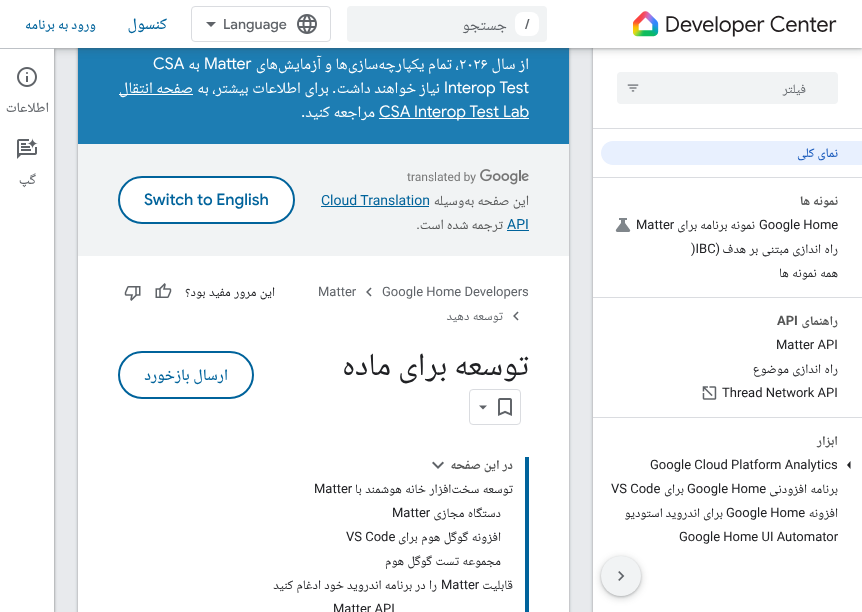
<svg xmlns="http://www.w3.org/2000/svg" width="862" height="612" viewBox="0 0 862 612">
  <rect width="100%" height="100%" fill="rgb(232,234,237)"/>
  <rect x="592" y="0" width="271" height="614" fill="rgba(60,64,67,0.15)" filter="blur(1.5px)"/>
  <rect x="593" y="1" width="269" height="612" fill="rgba(60,64,67,0.3)" filter="blur(1px)"/>
  <rect x="593" y="48" width="269" height="564" fill="rgb(255,255,255)"/>
  <rect x="77" y="32" width="493" height="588" rx="3" fill="rgba(60,64,67,0.15)" filter="blur(1.5px)"/>
  <rect x="78" y="33" width="491" height="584" rx="2" fill="rgba(60,64,67,0.3)" filter="blur(1px)"/>
  <rect x="78" y="48" width="491" height="96" fill="rgb(29,125,179)"/>
  <rect x="52" y="-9" width="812" height="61" fill="rgba(60,64,67,0.15)" filter="blur(3px)"/>
  <rect x="54" y="-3" width="808" height="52" fill="rgba(60,64,67,0.3)" filter="blur(1px)"/>
  <rect x="-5" y="48" width="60" height="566" fill="rgba(0,0,0,0.15)" filter="blur(1.5px)"/>
  <rect x="-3" y="49" width="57" height="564" fill="rgba(0,0,0,0.3)" filter="blur(1px)"/>
  <rect x="0" y="0" width="862" height="48" fill="rgb(255,255,255)"/>
  <image x="633" y="11" width="204" height="26" href="pic1.png"/>
  <rect x="347" y="6" width="200" height="36" rx="4" fill="rgb(241,243,244)"/>
  <rect x="515" y="12" width="24" height="24" rx="8" fill="rgb(255,255,255)"/>
  <text x="525" y="29" font-family="Google Sans" font-size="14" font-weight="500" fill="rgb(95,99,104)">/</text>
  <text x="507" y="30" font-family="Noto Naskh Arabic" font-size="16" direction="rtl" fill="rgb(95,99,104)">جستجو</text>
  <rect x="191.5" y="6.5" width="139" height="35" rx="3.5" fill="none" stroke="rgb(218,220,224)"/>
  <image x="297" y="14" width="20" height="20" href="pic2.png"/>
  <text x="223" y="29" font-family="Google Sans" font-size="14" font-weight="500" fill="rgb(95,99,104)">Language</text>
  <path d="M211 27L206 22H216Z" fill="rgb(95,99,104)"/>
  <text x="167" y="29" font-family="Noto Naskh Arabic" font-size="16" font-weight="500" direction="rtl" fill="rgb(0,99,155)">کنسول</text>
  <text x="96" y="29" font-family="Noto Naskh Arabic" font-size="14" font-weight="500" direction="rtl" fill="rgb(0,99,155)">ورود به برنامه</text>
  <rect x="593" y="128" width="269" height="1" fill="rgb(218,220,224)"/>
  <rect x="617" y="72" width="221" height="32" rx="4" fill="rgb(241,243,244)"/>
  <text x="806" y="93" font-family="Noto Naskh Arabic" font-size="13" direction="rtl" fill="rgb(95,99,104)">فیلتر</text>
  <image x="627" y="84" width="12" height="8" href="pic3.png"/>
  <path d="M613 141H862V165H613C606.5 165 601 159.5 601 153C601 146.5 606.5 141 613 141Z" fill="rgb(232,240,254)"/>
  <text x="838" y="157" font-family="Noto Naskh Arabic" font-size="13" font-weight="500" direction="rtl" fill="rgb(24,90,188)">نمای کلی</text>
  <rect x="593" y="177" width="269" height="1" fill="rgb(218,220,224)"/>
  <text x="838" y="205" font-family="Noto Naskh Arabic" font-size="13" font-weight="bold" direction="rtl" fill="rgb(84,85,85)">نمونه ها</text>
  <text x="759" y="229" font-family="Roboto" font-size="13" fill="rgb(32,33,36)">Google Home</text>
  <text x="755" y="229" font-family="Noto Naskh Arabic" font-size="13" direction="rtl" fill="rgb(32,33,36)">نمونه برنامه برای</text>
  <text x="636" y="229" font-family="Roboto" font-size="13" fill="rgb(32,33,36)">Matter</text>
  <image x="615" y="218" width="16" height="14" href="pic4.png"/>
  <text x="838" y="253" word-spacing="0.5" font-family="Noto Naskh Arabic" font-size="13" direction="rtl" fill="rgb(32,33,36)">راه اندازی مبتنی بر هدف</text>
  <text x="720" y="253" font-family="Roboto" font-size="13" direction="rtl" fill="rgb(32,33,36)">(</text>
  <text x="691" y="253" font-family="Roboto" font-size="13" fill="rgb(32,33,36)">)IBC</text>
  <text x="838" y="277" word-spacing="0.5" font-family="Noto Naskh Arabic" font-size="13" direction="rtl" fill="rgb(32,33,36)">همه نمونه ها</text>
  <rect x="593" y="297" width="269" height="1" fill="rgb(218,220,224)"/>
  <text x="838" y="325" font-family="Noto Naskh Arabic" font-size="13" font-weight="bold" direction="rtl" fill="rgb(84,85,85)">راهنمای</text>
  <text x="777" y="325" font-family="Roboto" font-size="13" font-weight="bold" fill="rgb(84,85,85)">API</text>
  <text x="776" y="349" font-family="Roboto" font-size="13" fill="rgb(32,33,36)">Matter API</text>
  <text x="838" y="373" word-spacing="0.5" font-family="Noto Naskh Arabic" font-size="13" direction="rtl" fill="rgb(32,33,36)">راه اندازی موضوع</text>
  <text x="722" y="397" font-family="Roboto" font-size="13" fill="rgb(32,33,36)">Thread Network API</text>
  <image x="702" y="386" width="15" height="14" href="pic5.png"/>
  <rect x="593" y="417" width="269" height="1" fill="rgb(218,220,224)"/>
  <text x="838" y="445" font-family="Noto Naskh Arabic" font-size="13" font-weight="bold" direction="rtl" fill="rgb(84,85,85)">ابزار</text>
  <path d="M850.5 461V469L847 465Z" fill="rgb(32,33,36)"/>
  <text x="650" y="469" font-family="Roboto" font-size="13" fill="rgb(32,33,36)">Google Cloud Platform Analytics</text>
  <text x="838" y="493" word-spacing="0.5" font-family="Noto Naskh Arabic" font-size="13" direction="rtl" fill="rgb(32,33,36)">برنامه افزودنی</text>
  <text x="687" y="493" font-family="Roboto" font-size="13" fill="rgb(32,33,36)">Google Home</text>
  <text x="684" y="493" font-family="Noto Naskh Arabic" font-size="13" direction="rtl" fill="rgb(32,33,36)">برای</text>
  <text x="611" y="493" font-family="Roboto" font-size="13" fill="rgb(32,33,36)">VS Code</text>
  <text x="838" y="517" font-family="Noto Naskh Arabic" font-size="13" direction="rtl" fill="rgb(32,33,36)">افزونه</text>
  <text x="726" y="517" font-family="Roboto" font-size="13" fill="rgb(32,33,36)">Google Home</text>
  <text x="723" y="517" font-family="Noto Naskh Arabic" font-size="13" direction="rtl" fill="rgb(32,33,36)">برای اندروید استودیو</text>
  <text x="679" y="541" font-family="Roboto" font-size="13" fill="rgb(32,33,36)">Google Home UI Automator</text>
  <rect x="78" y="256" width="491" height="356" fill="rgb(255,255,255)"/>
  <text x="529" y="69" font-family="Noto Naskh Arabic" font-size="16" direction="rtl" fill="rgb(255,255,255)">از سال</text>
  <text x="459" y="69" font-family="Noto Naskh Arabic" font-size="16" fill="rgb(255,255,255)">۲۰۲۶</text>
  <text x="459" y="69" font-family="Noto Naskh Arabic" font-size="16" direction="rtl" fill="rgb(255,255,255)">، تمام یکپارچه‌سازی‌ها و آزمایش‌های</text>
  <text x="204" y="69" font-family="Google Sans" font-size="16" fill="rgb(255,255,255)">Matter</text>
  <text x="200" y="69" font-family="Noto Naskh Arabic" font-size="16" direction="rtl" fill="rgb(255,255,255)">به</text>
  <g font-family="Google Sans" font-size="16" fill="rgb(255,255,255)">
    <text x="153" y="69">CSA</text>
    <text x="444" y="93">Interop Test</text>
  </g>
  <text x="440" y="93" font-family="Noto Naskh Arabic" font-size="16" direction="rtl" fill="rgb(255,255,255)">نیاز خواهند داشت</text>
  <text x="336" y="93" font-family="Google Sans" font-size="16" direction="rtl" fill="rgb(255,255,255)">.</text>
  <text x="329" y="93" font-family="Noto Naskh Arabic" font-size="16" direction="rtl" fill="rgb(255,255,255)">برای اطلاعات بیشتر، به</text>
  <rect x="119" y="94" width="74" height="1" fill="rgb(255,255,255)"/>
  <text x="193" y="93" font-family="Noto Naskh Arabic" font-size="16" direction="rtl" fill="rgb(255,255,255)">صفحه انتقال</text>
  <rect x="379" y="118" width="150" height="1" fill="rgb(255,255,255)"/>
  <text x="379" y="117" font-family="Google Sans" font-size="16" fill="rgb(255,255,255)">CSA Interop Test Lab</text>
  <text x="375" y="117" font-family="Noto Naskh Arabic" font-size="16" direction="rtl" fill="rgb(255,255,255)">مراجعه کنید</text>
  <text x="305" y="117" font-family="Google Sans" font-size="16" direction="rtl" fill="rgb(255,255,255)">.</text>
  <rect x="78" y="144" width="491" height="112" fill="rgb(241,243,244)"/>
  <image x="407" y="169" width="122" height="16" href="pic6.png"/>
  <text x="529" y="205" font-family="Noto Naskh Arabic" font-size="14" direction="rtl" fill="rgb(84,85,85)">این صفحه به‌وسیله</text>
  <text x="321" y="205" font-family="Roboto" font-size="14" fill="rgb(0,99,155)">Cloud Translation</text>
  <rect x="321" y="206" width="108" height="1" fill="rgb(0,99,155)"/>
  <text x="507" y="229" font-family="Roboto" font-size="14" fill="rgb(0,99,155)">API</text>
  <rect x="507" y="230" width="22" height="1" fill="rgb(0,99,155)"/>
  <text x="503" y="229" font-family="Noto Naskh Arabic" font-size="14" direction="rtl" fill="rgb(84,85,85)">ترجمه شده است</text>
  <text x="420" y="229" font-family="Roboto" font-size="14" direction="rtl" fill="rgb(84,85,85)">.</text>
  <rect x="119" y="177" width="175" height="46" rx="23" fill="rgb(255,255,255)" stroke="rgb(0,99,155)" stroke-width="2"/>
  <text x="144" y="205" font-family="Google Sans" font-size="16" font-weight="500" fill="rgb(0,99,155)">Switch to English</text>
  <text x="382" y="296" font-family="Roboto" font-size="13" fill="rgb(95,99,104)">Google Home Developers</text>
  <image x="366" y="287" width="6" height="10" href="pic7.png"/>
  <text x="318" y="296" font-family="Roboto" font-size="13" fill="rgb(95,99,104)">Matter</text>
  <image x="513" y="311" width="6" height="10" href="pic7.png"/>
  <text x="503" y="320" word-spacing="0.5" font-family="Noto Naskh Arabic" font-size="13" direction="rtl" fill="rgb(95,99,104)">توسعه دهید</text>
  <text x="275" y="296" word-spacing="0.5" font-family="Noto Naskh Arabic" font-size="13" direction="rtl" fill="rgb(32,33,36)">این مرور مفید بود؟</text>
  <image x="155" y="283" width="17" height="15" href="pic8.png"/>
  <image x="124" y="286" width="17" height="15" href="pic9.png"/>
  <text x="529" y="375" font-family="Noto Naskh Arabic" font-size="32" direction="rtl" fill="rgb(32,33,36)">توسعه برای ماده</text>
  <rect x="469.5" y="389.5" width="51" height="35" rx="3.5" fill="none" stroke="rgb(218,220,224)"/>
  <image x="498" y="398" width="14" height="18" href="pic10.png"/>
  <path d="M479 405.5H487L483 409.5Z" fill="rgb(95,99,104)"/>
  <rect x="119" y="352" width="134" height="46" rx="23" fill="none" stroke="rgb(0,99,155)" stroke-width="2"/>
  <text x="228" y="380" font-family="Noto Naskh Arabic" font-size="16" font-weight="500" direction="rtl" fill="rgb(0,99,155)">ارسال بازخورد</text>
  <rect x="525" y="457" width="4" height="155" fill="rgb(0,99,155)"/>
  <text x="513" y="469" font-family="Noto Naskh Arabic" font-size="13" font-weight="bold" direction="rtl" fill="rgb(84,85,85)">در این صفحه</text>
  <image x="432" y="461" width="12" height="8" href="pic11.png"/>
  <text x="513" y="493" word-spacing="0.5" font-family="Noto Naskh Arabic" font-size="13" direction="rtl" fill="rgb(32,33,36)">توسعه سخت‌افزار خانه هوشمند با</text>
  <text x="314" y="493" font-family="Roboto" font-size="13" fill="rgb(32,33,36)">Matter</text>
  <text x="501" y="517" word-spacing="0.5" font-family="Noto Naskh Arabic" font-size="13" direction="rtl" fill="rgb(32,33,36)">دستگاه مجازی</text>
  <text x="392" y="517" font-family="Roboto" font-size="13" fill="rgb(32,33,36)">Matter</text>
  <text x="501" y="541" word-spacing="0.5" font-family="Noto Naskh Arabic" font-size="13" direction="rtl" fill="rgb(32,33,36)">افزونه گوگل هوم برای</text>
  <text x="346" y="541" font-family="Roboto" font-size="13" fill="rgb(32,33,36)">VS Code</text>
  <g font-family="Noto Naskh Arabic" font-size="13" direction="rtl" fill="rgb(32,33,36)">
    <text x="501" y="565" word-spacing="0.5">مجموعه تست گوگل هوم</text>
    <text x="513" y="589">قابلیت</text>
  </g>
  <text x="441" y="589" font-family="Roboto" font-size="13" fill="rgb(32,33,36)">Matter</text>
  <text x="437" y="589" word-spacing="0.25" font-family="Noto Naskh Arabic" font-size="13" direction="rtl" fill="rgb(32,33,36)">را در برنامه اندروید خود ادغام کنید</text>
  <text x="333" y="613" font-family="Roboto" font-size="13" fill="rgb(32,33,36)">Matter API</text>
  <rect x="0" y="49" width="54" height="563" fill="rgb(255,255,255)"/>
  <rect x="0" y="48" width="54" height="1" fill="rgb(189,193,198)"/>
  <image x="17" y="67" width="20" height="20" href="pic12.png"/>
  <text x="49" y="112" font-family="Noto Naskh Arabic" font-size="14" font-weight="500" direction="rtl" fill="rgb(95,99,104)">اطلاعات</text>
  <image x="17" y="138" width="21" height="21" href="pic13.png"/>
  <text x="36" y="184" font-family="Noto Naskh Arabic" font-size="14" font-weight="500" direction="rtl" fill="rgb(95,99,104)">گپ</text>
  <rect x="599" y="556" width="44" height="44" rx="22" fill="rgba(60,64,67,0.15)" filter="blur(3px)"/>
  <rect x="601" y="557" width="40" height="40" rx="20" fill="rgba(60,64,67,0.3)" filter="blur(1px)"/>
  <circle cx="621" cy="576" r="20" fill="rgb(241,243,244)"/>
  <image x="618" y="571" width="7" height="10" href="pic14.png"/>
</svg>
